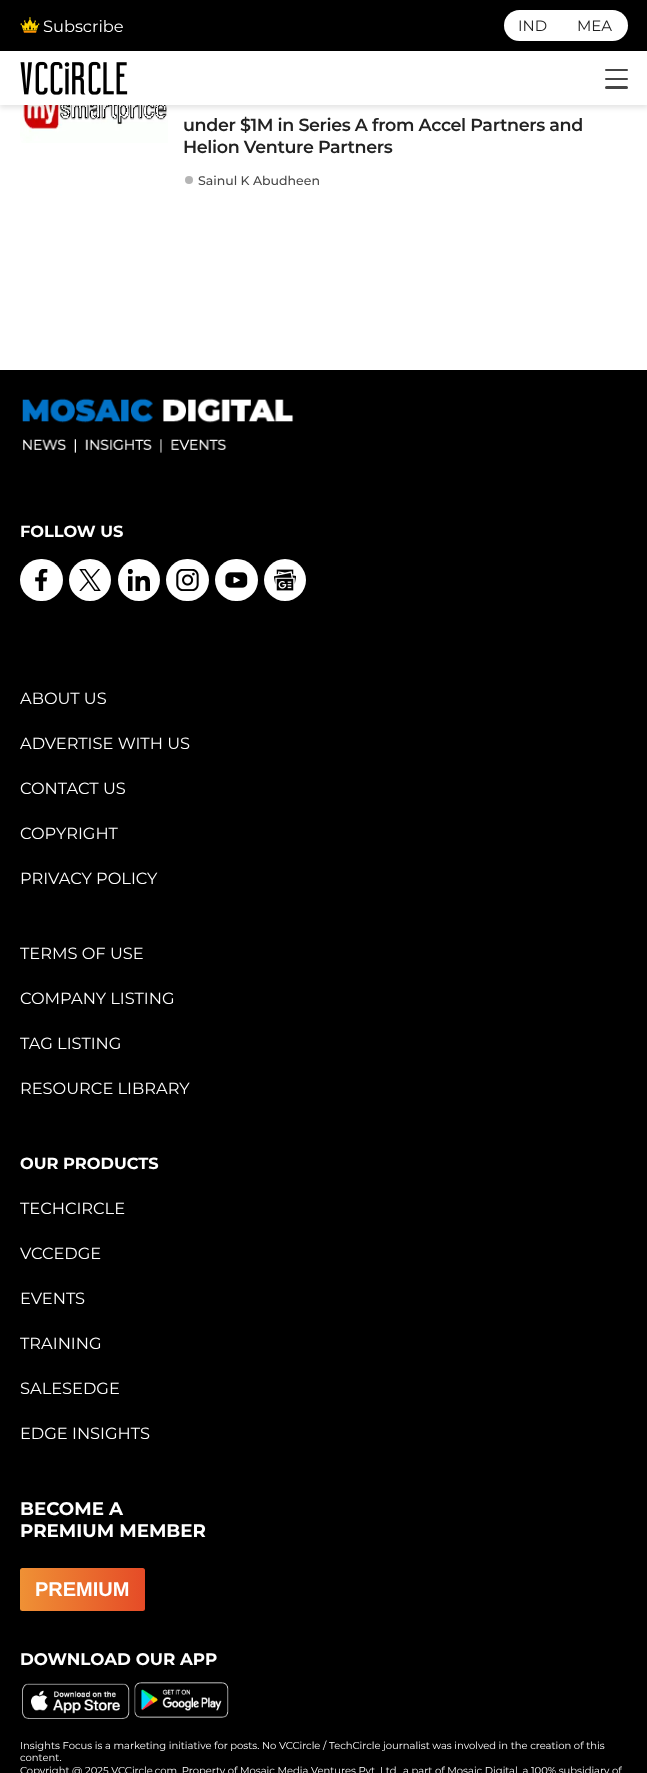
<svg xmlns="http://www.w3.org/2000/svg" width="647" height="1773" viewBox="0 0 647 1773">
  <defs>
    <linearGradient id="g1" gradientUnits="userSpaceOnUse" x1="20" y1="1589" x2="145" y2="1589"><stop offset="0" stop-color="rgb(239,145,53)"/><stop offset="1" stop-color="rgb(229,75,39)"/></linearGradient>
  </defs>
  <rect width="100%" height="100%" fill="rgb(255,255,255)"/>
  <image x="20" y="105" width="148" height="38" href="pic3.png"/>
  <rect x="0" y="3" width="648" height="105" fill="rgba(0,0,0,0.1)" filter="blur(2.5px)"/>
  <rect x="0" y="51" width="647" height="54" fill="rgb(255,255,255)"/>
  <rect x="0" y="0" width="647" height="51" fill="rgb(0,0,0)"/>
  <image x="20" y="17" width="20" height="16" href="pic1.png"/>
  <text x="43" y="32" font-family="Montserrat" font-size="16.25" fill="rgb(255,255,255)">Subscribe</text>
  <rect x="504" y="10" width="124" height="31" rx="15.5" fill="rgb(255,255,255)"/>
  <g font-family="Montserrat" font-size="15" fill="rgb(34,34,34)">
    <text x="518" y="31">IND</text>
    <text x="577" y="31">MEA</text>
  </g>
  <image x="20" y="61" width="108" height="34" href="pic2.png"/>
  <rect x="605" y="69" width="23" height="2" rx="1" fill="rgb(69,69,69)"/>
  <rect x="605" y="86" width="23" height="3" rx="1.5" fill="rgb(69,69,69)"/>
  <rect x="605" y="78" width="23" height="2" rx="1" fill="rgb(69,69,69)"/>
  <g font-family="Montserrat" font-size="17.5" font-weight="600" letter-spacing="-0.35" fill="rgb(34,34,34)">
    <text>
      <tspan x="183" y="131">under $1M in Series A from Accel Partners and</tspan>
      <tspan x="183" y="153">Helion Venture Partners</tspan>
    </text>
  </g>
  <circle cx="189" cy="180" r="4" fill="rgb(181,181,181)"/>
  <text x="198" y="185" font-family="Montserrat" font-size="12.5" font-weight="500" fill="rgb(72,72,72)">Sainul K Abudheen</text>
  <rect x="0" y="370" width="647" height="1403" fill="rgb(0,0,0)"/>
  <image x="22" y="398" width="272" height="55" href="pic4.png"/>
  <text x="20" y="537" font-family="Montserrat" font-size="16.25" font-weight="bold" fill="rgb(255,255,255)">FOLLOW US</text>
  <rect x="20" y="559" width="43" height="42" rx="21" fill="rgb(255,255,255)"/>
  <image x="35" y="569" width="13" height="22" href="pic5.png"/>
  <circle cx="90" cy="580" r="21" fill="rgb(255,255,255)"/>
  <image x="79" y="569" width="22" height="22" href="pic6.png"/>
  <circle cx="139" cy="580" r="21" fill="rgb(255,255,255)"/>
  <image x="128" y="569" width="22" height="22" href="pic7.png"/>
  <rect x="166" y="559" width="43" height="42" rx="21" fill="rgb(255,255,255)"/>
  <image x="176" y="569" width="23" height="22" href="pic8.png"/>
  <rect x="215" y="559" width="43" height="42" rx="21" fill="rgb(255,255,255)"/>
  <image x="225" y="572" width="23" height="16" href="pic9.png"/>
  <circle cx="285" cy="580" r="21" fill="rgb(255,255,255)"/>
  <image x="274" y="569" width="22" height="22" href="pic10.png"/>
  <g font-family="Montserrat" font-size="16.25" fill="rgb(255,255,255)">
    <text x="20" y="704">ABOUT US</text>
    <text x="20" y="749">ADVERTISE WITH US</text>
    <text x="20" y="794">CONTACT US</text>
    <text x="20" y="839">COPYRIGHT</text>
    <text x="20" y="884">PRIVACY POLICY</text>
    <text x="20" y="959">TERMS OF USE</text>
    <text x="20" y="1004">COMPANY LISTING</text>
    <text x="20" y="1049">TAG LISTING</text>
    <text x="20" y="1094">RESOURCE LIBRARY</text>
  </g>
  <text x="20" y="1169" font-family="Montserrat" font-size="16.25" font-weight="bold" fill="rgb(255,255,255)">OUR PRODUCTS</text>
  <g font-family="Montserrat" font-size="16.25" fill="rgb(255,255,255)">
    <text x="20" y="1214">TECHCIRCLE</text>
    <text x="20" y="1259">VCCEDGE</text>
    <text x="20" y="1304">EVENTS</text>
    <text x="20" y="1349">TRAINING</text>
    <text x="20" y="1394">SALESEDGE</text>
    <text x="20" y="1439">EDGE INSIGHTS</text>
  </g>
  <g font-family="Montserrat" font-size="18.25" font-weight="bold" fill="rgb(255,255,255)">
    <text>
      <tspan x="20" y="1515">BECOME A</tspan>
      <tspan x="20" y="1537">PREMIUM MEMBER</tspan>
    </text>
  </g>
  <rect x="20" y="1568" width="125" height="43" rx="2.5" fill="url(#g1)"/>
  <text x="35" y="1596" font-family="Liberation Sans" font-size="20" font-weight="bold" fill="rgb(255,255,255)">PREMIUM</text>
  <text x="20" y="1665" font-family="Montserrat" font-size="16.75" font-weight="bold" fill="rgb(255,255,255)">DOWNLOAD OUR APP</text>
  <image x="22" y="1683" width="108" height="36" href="pic11.png"/>
  <image x="134" y="1682" width="95" height="36" href="pic12.png"/>
  <g font-family="Montserrat" font-size="10" fill="rgb(255,255,255)">
    <text>
      <tspan x="20" y="1749">Insights Focus is a marketing initiative for posts. No VCCircle / TechCircle journalist was involved in the creation of this</tspan>
      <tspan x="20" y="1761">content.</tspan>
      <tspan x="20" y="1774">Copyright @ 2025 VCCircle.com. Property of Mosaic Media Ventures Pvt. Ltd</tspan>
    </text>
    <text x="403" y="1774">a part of Mosaic Digital, a 100% subsidiary of</text>
  </g>
</svg>
